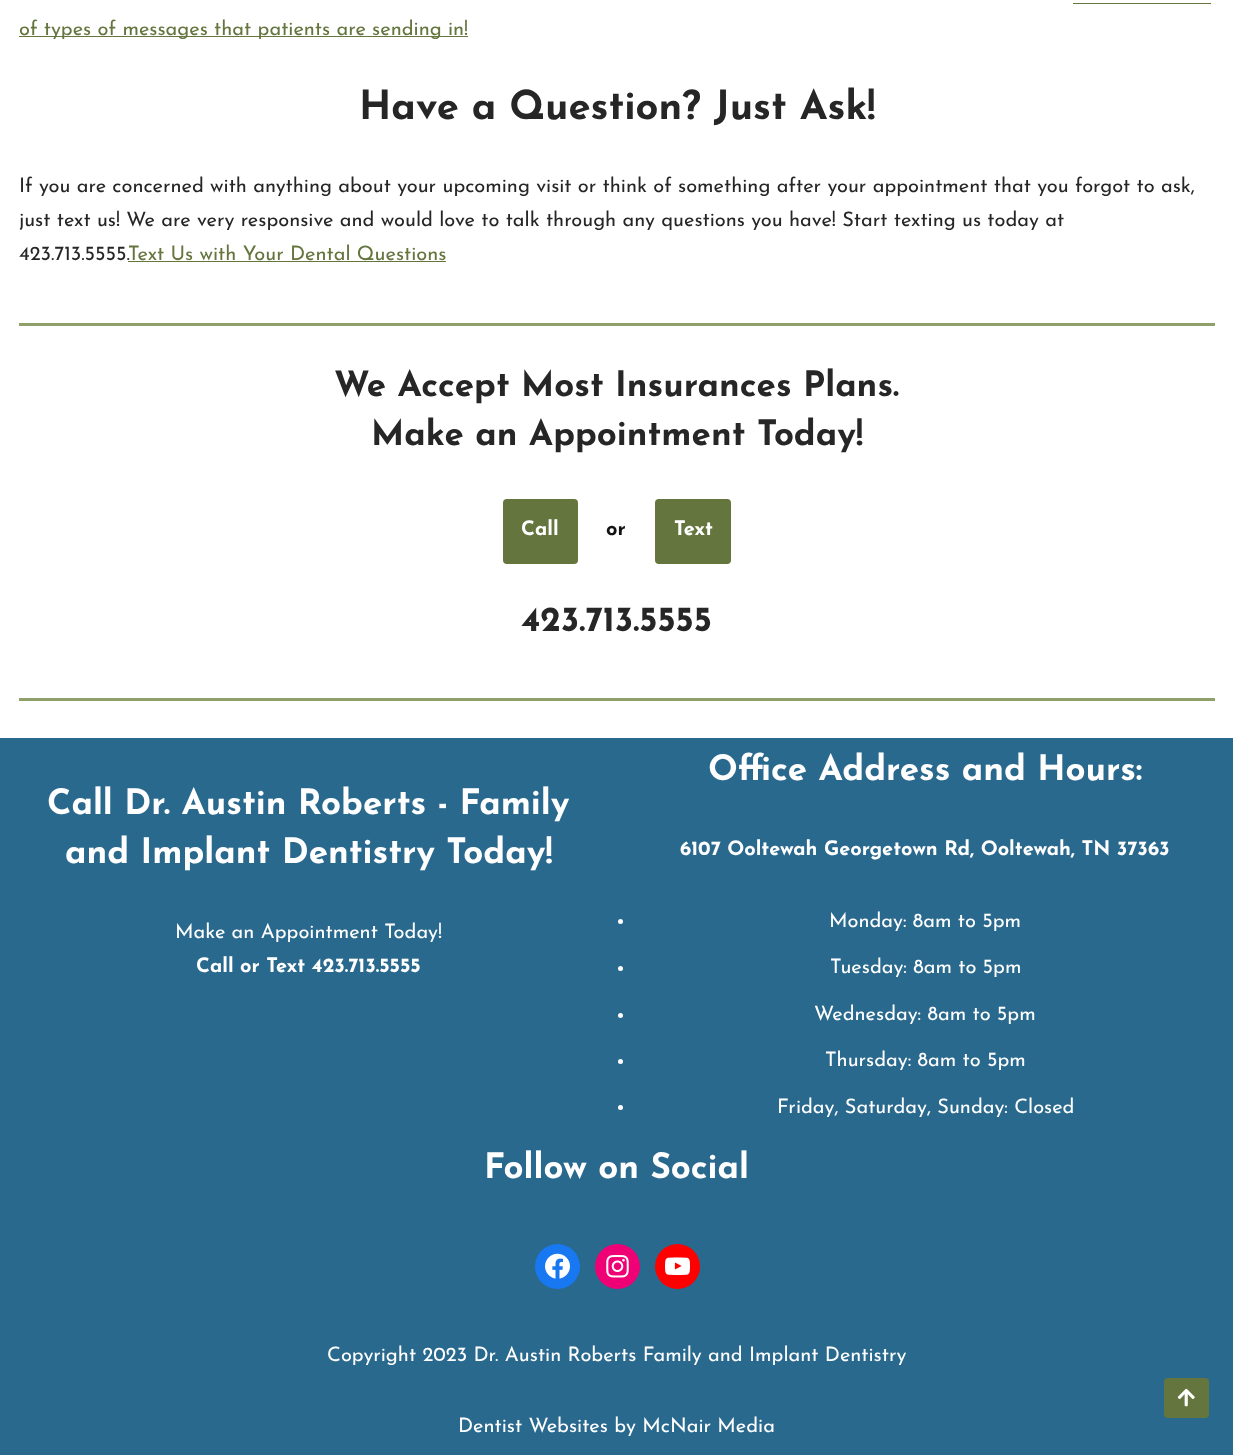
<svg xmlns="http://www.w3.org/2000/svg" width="1233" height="1455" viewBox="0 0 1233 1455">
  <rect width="100%" height="100%" fill="rgb(255,255,255)"/>
  <rect x="19" y="36" width="449" height="1" fill="rgb(100,117,62)"/>
  <text x="19" y="35" font-family="Josefin Sans" font-size="20" fill="rgb(100,117,62)">of types of messages that patients are sending in!</text>
  <rect x="1073" y="3" width="138" height="1" fill="rgb(100,117,62)"/>
  <text x="359" y="119" font-family="Josefin Sans" font-size="40" font-weight="bold" fill="rgb(39,38,38)">Have a Question? Just Ask!</text>
  <g font-family="Josefin Sans" font-size="20" fill="rgb(39,38,38)">
    <text>
      <tspan x="19" y="192">If you are concerned with anything about your upcoming visit or think of something after your appointment that you forgot to ask,</tspan>
      <tspan x="19" y="226">just text us! We are very responsive and would love to talk through any questions you have! Start texting us today at</tspan>
      <tspan x="19" y="260">423.713.5555.</tspan>
    </text>
  </g>
  <text x="128" y="260" font-family="Josefin Sans" font-size="20" fill="rgb(100,117,62)">Text Us with Your Dental Questions</text>
  <rect x="128" y="261" width="318" height="1" fill="rgb(100,117,62)"/>
  <rect x="19" y="323" width="1196" height="3" fill="rgb(144,160,108)"/>
  <g font-family="Josefin Sans" font-size="35" font-weight="bold" fill="rgb(39,38,38)">
    <text x="334" y="396">We Accept Most Insurances Plans.</text>
    <text x="371" y="445">Make an Appointment Today!</text>
  </g>
  <rect x="503" y="499" width="75" height="65" rx="4" fill="rgb(100,117,62)"/>
  <text x="521" y="535" font-family="Josefin Sans" font-size="20" font-weight="bold" fill="rgb(255,255,255)">Call</text>
  <text x="606" y="535" font-family="Josefin Sans" font-size="20" font-weight="bold" fill="rgb(18,18,18)">or</text>
  <rect x="655" y="499" width="76" height="65" rx="4" fill="rgb(100,117,62)"/>
  <text x="674" y="535" font-family="Josefin Sans" font-size="20" font-weight="bold" fill="rgb(255,255,255)">Text</text>
  <text x="521" y="631" font-family="Josefin Sans" font-size="35" font-weight="bold" fill="rgb(39,38,38)">423.713.5555</text>
  <rect x="19" y="698" width="1196" height="3" fill="rgb(144,160,108)"/>
  <rect x="0" y="738" width="1233" height="717" fill="rgb(42,105,142)"/>
  <g font-family="Josefin Sans" font-size="35" font-weight="bold" fill="rgb(255,255,255)">
    <text x="47" y="814">Call Dr. Austin Roberts - Family</text>
    <text x="65" y="863">and Implant Dentistry Today!</text>
  </g>
  <text x="175" y="938" font-family="Josefin Sans" font-size="20" fill="rgb(255,255,255)">Make an Appointment Today!</text>
  <text x="196" y="972" font-family="Josefin Sans" font-size="20" font-weight="bold" fill="rgb(255,255,255)">Call or Text 423.713.5555</text>
  <text x="708" y="780" font-family="Josefin Sans" font-size="35" font-weight="bold" fill="rgb(255,255,255)">Office Address and Hours:</text>
  <text x="680" y="855" font-family="Josefin Sans" font-size="20" font-weight="bold" fill="rgb(255,255,255)">6107 Ooltewah Georgetown Rd, Ooltewah, TN 37363</text>
  <circle cx="620.5" cy="921.5" r="2.5" fill="rgb(255,255,255)"/>
  <text x="829" y="927" font-family="Josefin Sans" font-size="20" fill="rgb(255,255,255)">Monday: 8am to 5pm</text>
  <circle cx="620.5" cy="968.5" r="2.5" fill="rgb(255,255,255)"/>
  <text x="830" y="973" font-family="Josefin Sans" font-size="20" fill="rgb(255,255,255)">Tuesday: 8am to 5pm</text>
  <circle cx="620.5" cy="1015.5" r="2.5" fill="rgb(255,255,255)"/>
  <text x="814" y="1020" font-family="Josefin Sans" font-size="20" fill="rgb(255,255,255)">Wednesday: 8am to 5pm</text>
  <circle cx="620.5" cy="1061.5" r="2.5" fill="rgb(255,255,255)"/>
  <text x="825" y="1066" font-family="Josefin Sans" font-size="20" fill="rgb(255,255,255)">Thursday: 8am to 5pm</text>
  <circle cx="620.5" cy="1107.5" r="2.5" fill="rgb(255,255,255)"/>
  <text x="777" y="1113" font-family="Josefin Sans" font-size="20" fill="rgb(255,255,255)">Friday, Saturday, Sunday: Closed</text>
  <text x="484" y="1178" font-family="Josefin Sans" font-size="35" font-weight="bold" fill="rgb(255,255,255)">Follow on Social</text>
  <circle cx="557.5" cy="1266.5" r="22.5" fill="rgb(23,120,242)"/>
  <image x="545" y="1253" width="25" height="26" href="pic1.png"/>
  <circle cx="617.5" cy="1266.5" r="22.5" fill="rgb(240,0,117)"/>
  <image x="606" y="1255" width="23" height="23" href="pic2.png"/>
  <circle cx="677.5" cy="1266.5" r="22.5" fill="rgb(255,0,0)"/>
  <image x="665" y="1257" width="25" height="19" href="pic3.png"/>
  <g font-family="Josefin Sans" font-size="20" fill="rgb(255,255,255)">
    <text x="327" y="1361">Copyright 2023 Dr. Austin Roberts Family and Implant Dentistry</text>
    <text x="458" y="1432">Dentist Websites by McNair Media</text>
  </g>
  <rect x="1164" y="1378" width="45" height="40" rx="4" fill="rgb(100,117,62)"/>
  <image x="1177" y="1388" width="18" height="19" href="pic4.png"/>
</svg>
